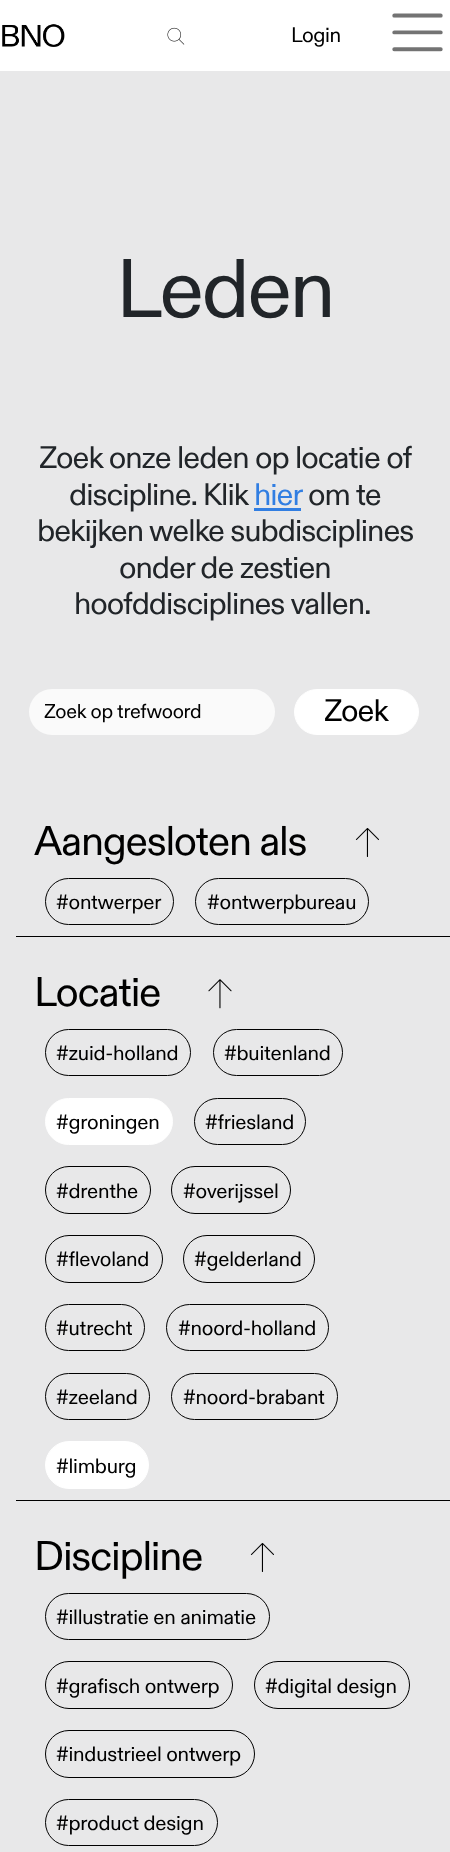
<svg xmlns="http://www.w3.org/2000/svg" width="450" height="1852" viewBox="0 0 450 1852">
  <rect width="100%" height="100%" fill="rgb(255,255,255)"/>
  <image x="2" y="24" width="63" height="23" href="pic1.png"/>
  <image x="167" y="27" width="18" height="18" href="pic2.png"/>
  <text x="291" y="42" font-family="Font" font-size="21" letter-spacing="-0.5" fill="rgb(0,0,0)">Login</text>
  <image x="392" y="13" width="51" height="39" href="pic3.png"/>
  <path d="M394.5 19.5H440.5M394.5 36H440.5M394.5 53H440.5" fill="none" stroke="rgba(255,255,255,0.55)" stroke-width="4.2" stroke-linecap="round"/>
  <rect x="0" y="71" width="450" height="1781" fill="rgb(232,232,233)"/>
  <text x="116" y="317" font-family="Font" font-size="83" letter-spacing="-2.5" fill="rgb(33,37,41)">Leden</text>
  <g font-family="Font" font-size="31.25" letter-spacing="-1" fill="rgb(33,37,41)">
    <text x="39" y="468">Zoek onze leden op locatie of</text>
    <text x="69" y="505">discipline. Klik</text>
  </g>
  <text x="254" y="505" font-family="Font" font-size="31.25" letter-spacing="-1" fill="rgb(49,126,226)">hier</text>
  <rect x="254" y="508" width="47" height="3" fill="rgb(49,126,226)"/>
  <g font-family="Font" font-size="31.25" letter-spacing="-1" fill="rgb(33,37,41)">
    <text x="308" y="505">om te</text>
    <text x="37" y="541">bekijken welke subdisciplines</text>
    <text x="119" y="578">onder de zestien</text>
    <text x="74" y="614">hoofddisciplines vallen.</text>
  </g>
  <rect x="29" y="689" width="246" height="46" rx="23" fill="rgb(250,250,250)"/>
  <text x="44" y="718" font-family="Font" font-size="20" letter-spacing="-0.25" fill="rgb(0,0,0)">Zoek op trefwoord</text>
  <rect x="294.5" y="689.5" width="124" height="45" rx="22.5" fill="rgb(255,255,255)" stroke="rgb(255,255,255)"/>
  <text x="324" y="721" font-family="Font" font-size="31.25" letter-spacing="-1" fill="rgb(0,0,0)">Zoek</text>
  <text x="34" y="855" font-family="Font" font-size="41.5" letter-spacing="-1.25" fill="rgb(0,0,0)">Aangesloten als</text>
  <image x="355" y="828" width="24" height="29" href="pic4.png"/>
  <rect x="45.5" y="878.5" width="128" height="46" rx="23" fill="none" stroke="rgb(0,0,0)"/>
  <text x="56" y="909" font-family="Font" font-size="20.75" letter-spacing="-0.25" fill="rgb(0,0,0)">#ontwerper</text>
  <rect x="195.5" y="878.5" width="173" height="46" rx="23" fill="none" stroke="rgb(0,0,0)"/>
  <text x="207" y="909" font-family="Font" font-size="20.75" letter-spacing="-0.25" fill="rgb(0,0,0)">#ontwerpbureau</text>
  <rect x="16" y="936" width="434" height="1" fill="rgb(0,0,0)"/>
  <text x="34" y="1006" font-family="Font" font-size="41.5" letter-spacing="-1.25" fill="rgb(0,0,0)">Locatie</text>
  <image x="208" y="979" width="24" height="30" href="pic5.png"/>
  <rect x="45.5" y="1029.5" width="145" height="46" rx="23" fill="none" stroke="rgb(0,0,0)"/>
  <text x="56" y="1060" font-family="Font" font-size="20.75" letter-spacing="-0.25" fill="rgb(0,0,0)">#zuid-holland</text>
  <rect x="213.5" y="1029.5" width="129" height="46" rx="23" fill="none" stroke="rgb(0,0,0)"/>
  <text x="224" y="1060" font-family="Font" font-size="20.75" letter-spacing="-0.25" fill="rgb(0,0,0)">#buitenland</text>
  <rect x="45.5" y="1098.5" width="127" height="46" rx="23" fill="rgb(255,255,255)" stroke="rgb(255,255,255)"/>
  <text x="56" y="1129" font-family="Font" font-size="20.75" letter-spacing="-0.25" fill="rgb(0,0,0)">#groningen</text>
  <rect x="194.5" y="1098.5" width="111" height="46" rx="23" fill="none" stroke="rgb(0,0,0)"/>
  <text x="205" y="1129" font-family="Font" font-size="20.75" letter-spacing="-0.25" fill="rgb(0,0,0)">#friesland</text>
  <rect x="45.5" y="1166.5" width="105" height="47" rx="23.5" fill="none" stroke="rgb(0,0,0)"/>
  <text x="56" y="1198" font-family="Font" font-size="20.75" letter-spacing="-0.25" fill="rgb(0,0,0)">#drenthe</text>
  <rect x="171.5" y="1166.5" width="119" height="47" rx="23.5" fill="none" stroke="rgb(0,0,0)"/>
  <text x="183" y="1198" font-family="Font" font-size="20.75" letter-spacing="-0.25" fill="rgb(0,0,0)">#overijssel</text>
  <rect x="45.5" y="1235.5" width="117" height="47" rx="23.5" fill="none" stroke="rgb(0,0,0)"/>
  <text x="56" y="1266" font-family="Font" font-size="20.75" letter-spacing="-0.25" fill="rgb(0,0,0)">#flevoland</text>
  <rect x="183.5" y="1235.5" width="131" height="47" rx="23.5" fill="none" stroke="rgb(0,0,0)"/>
  <text x="194" y="1266" font-family="Font" font-size="20.75" letter-spacing="-0.25" fill="rgb(0,0,0)">#gelderland</text>
  <rect x="45.5" y="1304.5" width="99" height="46" rx="23" fill="none" stroke="rgb(0,0,0)"/>
  <text x="56" y="1335" font-family="Font" font-size="20.75" letter-spacing="-0.25" fill="rgb(0,0,0)">#utrecht</text>
  <rect x="166.5" y="1304.5" width="162" height="46" rx="23" fill="none" stroke="rgb(0,0,0)"/>
  <text x="178" y="1335" font-family="Font" font-size="20.75" letter-spacing="-0.25" fill="rgb(0,0,0)">#noord-holland</text>
  <rect x="45.5" y="1373.5" width="104" height="46" rx="23" fill="none" stroke="rgb(0,0,0)"/>
  <text x="56" y="1404" font-family="Font" font-size="20.75" letter-spacing="-0.25" fill="rgb(0,0,0)">#zeeland</text>
  <rect x="171.5" y="1373.5" width="166" height="46" rx="23" fill="none" stroke="rgb(0,0,0)"/>
  <text x="183" y="1404" font-family="Font" font-size="20.75" letter-spacing="-0.25" fill="rgb(0,0,0)">#noord-brabant</text>
  <rect x="45.5" y="1441.5" width="103" height="47" rx="23.5" fill="rgb(255,255,255)" stroke="rgb(255,255,255)"/>
  <text x="56" y="1473" font-family="Font" font-size="20.75" letter-spacing="-0.25" fill="rgb(0,0,0)">#limburg</text>
  <rect x="16" y="1500" width="434" height="1" fill="rgb(0,0,0)"/>
  <text x="34" y="1570" font-family="Font" font-size="41.5" letter-spacing="-1.25" fill="rgb(0,0,0)">Discipline</text>
  <image x="250" y="1543" width="24" height="29" href="pic4.png"/>
  <rect x="45.5" y="1593.5" width="224" height="46" rx="23" fill="none" stroke="rgb(0,0,0)"/>
  <text x="56" y="1624" font-family="Font" font-size="20.75" letter-spacing="-0.25" fill="rgb(0,0,0)">#illustratie en animatie</text>
  <rect x="45.5" y="1661.5" width="187" height="47" rx="23.5" fill="none" stroke="rgb(0,0,0)"/>
  <text x="56" y="1693" font-family="Font" font-size="20.75" letter-spacing="-0.25" fill="rgb(0,0,0)">#grafisch ontwerp</text>
  <rect x="254.5" y="1661.5" width="155" height="47" rx="23.5" fill="none" stroke="rgb(0,0,0)"/>
  <text x="265" y="1693" font-family="Font" font-size="20.75" letter-spacing="-0.25" fill="rgb(0,0,0)">#digital design</text>
  <rect x="45.5" y="1730.5" width="209" height="47" rx="23.5" fill="none" stroke="rgb(0,0,0)"/>
  <text x="56" y="1761" font-family="Font" font-size="20.75" letter-spacing="-0.25" fill="rgb(0,0,0)">#industrieel ontwerp</text>
  <rect x="45.5" y="1799.5" width="172" height="46" rx="23" fill="none" stroke="rgb(0,0,0)"/>
  <text x="56" y="1830" font-family="Font" font-size="20.75" letter-spacing="-0.25" fill="rgb(0,0,0)">#product design</text>
</svg>
